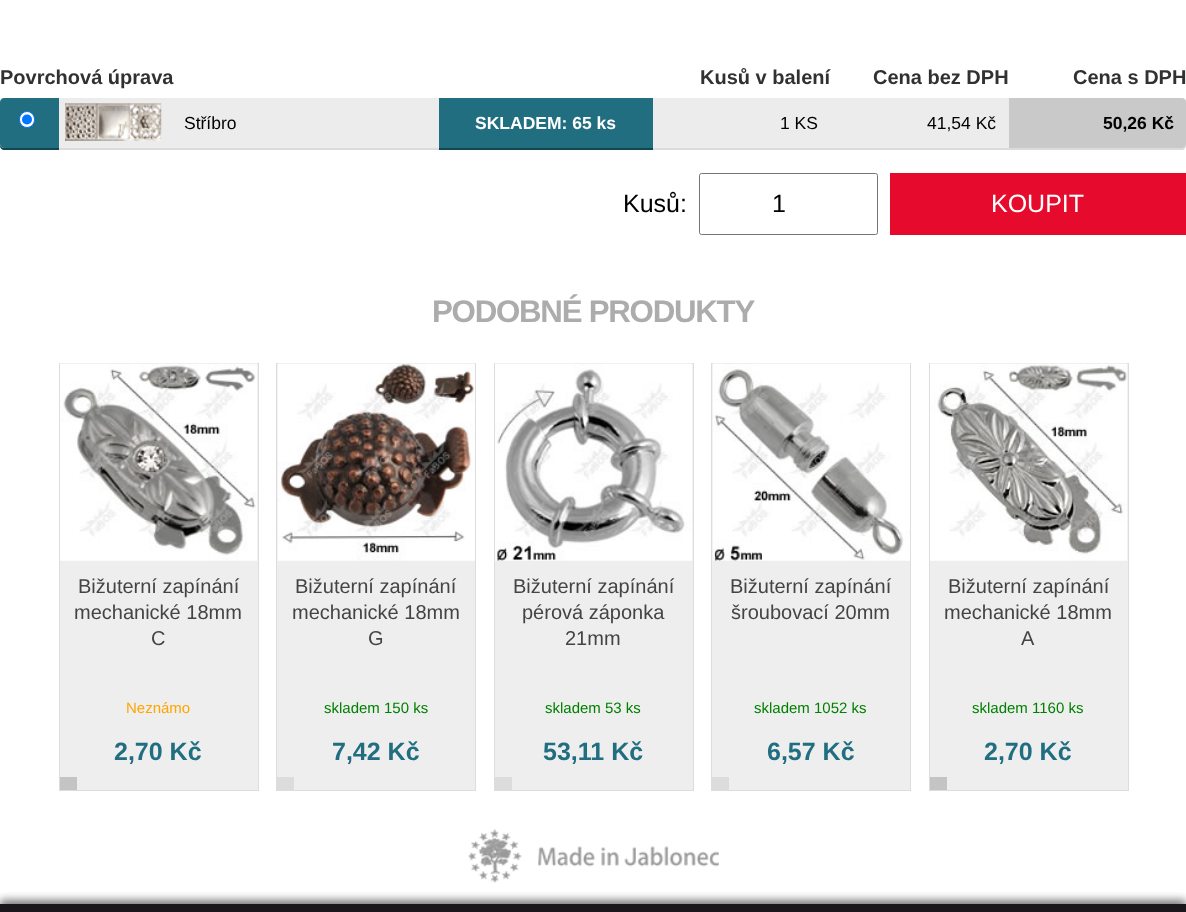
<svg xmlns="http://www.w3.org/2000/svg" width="1186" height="912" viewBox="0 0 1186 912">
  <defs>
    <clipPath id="clip1"><rect x="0" y="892" width="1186" height="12"/></clipPath>
  </defs>
  <rect width="100%" height="100%" fill="rgb(255,255,255)"/>
  <g font-family="Liberation Sans" font-size="20" font-weight="bold" fill="rgb(49,49,49)">
    <text x="0" y="84">Povrchová úprava</text>
    <text x="700" y="84">Kusů v balení</text>
    <text x="873" y="84">Cena bez DPH</text>
    <text x="1073" y="84">Cena s DPH</text>
  </g>
  <rect x="0" y="98" width="1186" height="50" rx="4" fill="rgb(236,236,236)"/>
  <path d="M0 144V146C0 148 2 150 4 150H59V100V148H4C2 148 0 146 0 144Z" fill="rgb(17,70,83)"/>
  <path d="M4 98H59V148H4C2 148 0 146 0 144V102C0 100 2 98 4 98Z" fill="rgb(33,110,128)"/>
  <rect x="19.5" y="111.5" width="15" height="16" rx="7.5" fill="rgb(255,255,255)" stroke="rgb(0,117,255)"/>
  <circle cx="27" cy="119.5" r="5" fill="rgb(0,117,255)"/>
  <path d="M59 148V150H178V100V148Z" fill="rgb(219,219,219)"/>
  <image x="65" y="103" width="97" height="38" href="pic1.png"/>
  <path d="M178 148V150H439V100V148Z" fill="rgb(219,219,219)"/>
  <text x="184" y="129" font-family="Liberation Sans" font-size="17.5" fill="rgb(0,0,0)">Stříbro</text>
  <path d="M439 148V150H653V100H652V148Z" fill="rgb(17,70,83)"/>
  <rect x="439" y="98" width="214" height="50" fill="rgb(33,110,128)"/>
  <text x="475" y="129" font-family="Liberation Sans" font-size="17.5" font-weight="bold" fill="rgb(255,255,255)">SKLADEM: 65 ks</text>
  <rect x="653" y="148" width="177" height="2" fill="rgb(219,219,219)"/>
  <text x="780" y="129" font-family="Liberation Sans" font-size="17.5" fill="rgb(0,0,0)">1 KS</text>
  <path d="M830 148V150H1009V100V148Z" fill="rgb(219,219,219)"/>
  <text x="927" y="129" font-family="Liberation Sans" font-size="17.5" fill="rgb(0,0,0)">41,54 Kč</text>
  <path d="M1009 148V150H1183C1185 149 1186 147 1186 145C1185 147 1184 148 1182 148Z" fill="rgb(219,219,219)"/>
  <path d="M1009 98H1182C1184 98 1186 100 1186 102V144C1186 146 1184 148 1182 148H1009Z" fill="rgb(201,201,201)"/>
  <text x="1103" y="129" font-family="Liberation Sans" font-size="17.5" font-weight="bold" fill="rgb(0,0,0)">50,26 Kč</text>
  <text x="623" y="212" font-family="Liberation Sans" font-size="25" fill="rgb(0,0,0)">Kusů:</text>
  <rect x="699.5" y="173.5" width="178" height="61" rx="2" fill="none" stroke="rgb(118,118,118)"/>
  <text x="772" y="212" font-family="Liberation Sans" font-size="25" fill="rgb(0,0,0)">1</text>
  <rect x="890" y="173" width="296" height="62" fill="rgb(230,11,45)"/>
  <text x="991" y="212" font-family="Liberation Sans" font-size="25" fill="rgb(255,255,255)">KOUPIT</text>
  <text x="432" y="322" font-family="Liberation Sans" font-size="31.25" font-weight="bold" letter-spacing="-1.25" fill="rgb(172,172,172)">PODOBNÉ PRODUKTY</text>
  <rect x="59.5" y="363.5" width="199" height="427" fill="rgb(238,238,238)" stroke="rgb(221,221,221)"/>
  <image x="60" y="363" width="198" height="198" href="pic2.png"/>
  <g font-family="Liberation Sans" font-size="20" fill="rgb(68,68,68)">
    <text x="78" y="593">Bižuterní zapínání</text>
    <text x="74" y="619">mechanické 18mm</text>
    <text x="151" y="645">C</text>
  </g>
  <text x="126" y="713" font-family="Liberation Sans" font-size="15" fill="rgb(255,165,0)">Neznámo</text>
  <text x="114" y="760" font-family="Liberation Sans" font-size="25" font-weight="bold" fill="rgb(33,110,128)">2,70 Kč</text>
  <rect x="60" y="777" width="17" height="13" fill="rgb(196,196,196)"/>
  <rect x="276.5" y="363.5" width="199" height="427" fill="rgb(238,238,238)" stroke="rgb(221,221,221)"/>
  <image x="277" y="363" width="198" height="198" href="pic3.png"/>
  <g font-family="Liberation Sans" font-size="20" fill="rgb(68,68,68)">
    <text x="295" y="593">Bižuterní zapínání</text>
    <text x="292" y="619">mechanické 18mm</text>
    <text x="368" y="645">G</text>
  </g>
  <text x="324" y="713" font-family="Liberation Sans" font-size="15" fill="rgb(0,128,0)">skladem 150 ks</text>
  <text x="332" y="760" font-family="Liberation Sans" font-size="25" font-weight="bold" fill="rgb(33,110,128)">7,42 Kč</text>
  <rect x="277" y="777" width="17" height="13" fill="rgb(220,220,220)"/>
  <rect x="494.5" y="363.5" width="199" height="427" fill="rgb(238,238,238)" stroke="rgb(221,221,221)"/>
  <image x="495" y="363" width="198" height="198" href="pic4.png"/>
  <g font-family="Liberation Sans" font-size="20" fill="rgb(68,68,68)">
    <text x="513" y="593">Bižuterní zapínání</text>
    <text x="522" y="619">pérová záponka</text>
    <text x="565" y="645">21mm</text>
  </g>
  <text x="545" y="713" font-family="Liberation Sans" font-size="15" fill="rgb(0,128,0)">skladem 53 ks</text>
  <text x="543" y="760" font-family="Liberation Sans" font-size="25" font-weight="bold" fill="rgb(33,110,128)">53,11 Kč</text>
  <rect x="495" y="777" width="17" height="13" fill="rgb(220,220,220)"/>
  <rect x="711.5" y="363.5" width="199" height="427" fill="rgb(238,238,238)" stroke="rgb(221,221,221)"/>
  <image x="712" y="363" width="198" height="198" href="pic5.png"/>
  <g font-family="Liberation Sans" font-size="20" fill="rgb(68,68,68)">
    <text x="730" y="593">Bižuterní zapínání</text>
    <text x="731" y="619">šroubovací 20mm</text>
  </g>
  <text x="754" y="713" font-family="Liberation Sans" font-size="15" fill="rgb(0,128,0)">skladem 1052 ks</text>
  <text x="767" y="760" font-family="Liberation Sans" font-size="25" font-weight="bold" fill="rgb(33,110,128)">6,57 Kč</text>
  <rect x="712" y="777" width="17" height="13" fill="rgb(220,220,220)"/>
  <rect x="929.5" y="363.5" width="199" height="427" fill="rgb(238,238,238)" stroke="rgb(221,221,221)"/>
  <image x="930" y="363" width="198" height="198" href="pic6.png"/>
  <g font-family="Liberation Sans" font-size="20" fill="rgb(68,68,68)">
    <text x="948" y="593">Bižuterní zapínání</text>
    <text x="944" y="619">mechanické 18mm</text>
    <text x="1021" y="645">A</text>
  </g>
  <text x="972" y="713" font-family="Liberation Sans" font-size="15" fill="rgb(0,128,0)">skladem 1160 ks</text>
  <text x="984" y="760" font-family="Liberation Sans" font-size="25" font-weight="bold" fill="rgb(33,110,128)">2,70 Kč</text>
  <rect x="930" y="777" width="17" height="13" fill="rgb(196,196,196)"/>
  <rect x="0" y="904" width="1186" height="8" fill="rgb(26,23,27)"/>
  <image x="468" y="829" width="251" height="54" href="pic7.png"/>
  <g clip-path="url(#clip1)">
    <rect x="0" y="900" width="1186" height="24" fill="rgb(119,119,119)" filter="blur(4px)"/>
  </g>
</svg>
